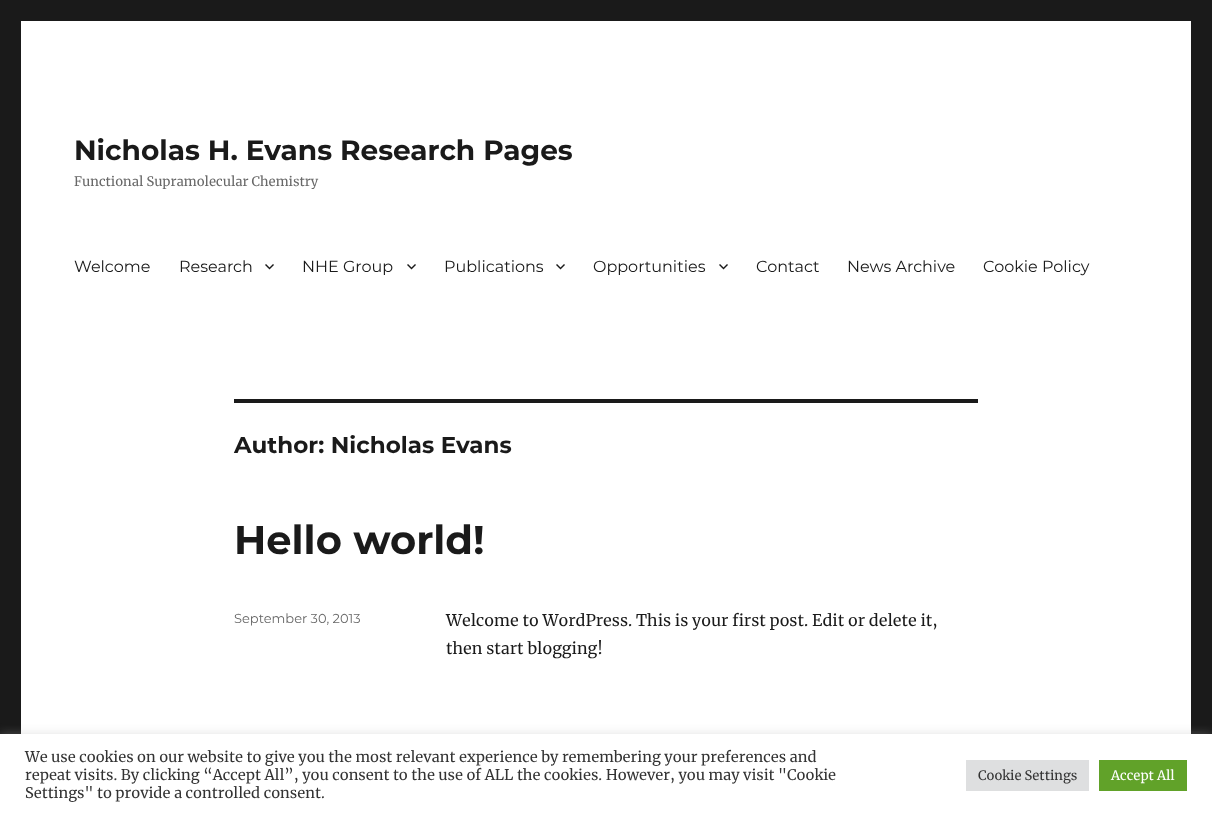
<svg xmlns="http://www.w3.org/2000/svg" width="1212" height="816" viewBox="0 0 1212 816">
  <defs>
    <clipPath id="clip1"><rect x="74" y="133" width="499" height="56"/></clipPath>
  </defs>
  <rect width="100%" height="100%" fill="rgb(26,26,26)"/>
  <rect x="21" y="21" width="1170" height="713" fill="rgb(255,255,255)"/>
  <text x="74" y="160" font-family="Montserrat" font-size="28" font-weight="100" fill="rgb(26,26,26)">Nicholas H. Evans Research Pages</text>
  <g clip-path="url(#clip1)">
    <text x="74" y="186" font-family="Merriweather" font-size="13" fill="rgb(104,104,104)">Functional Supramolecular Chemistry</text>
  </g>
  <g font-family="'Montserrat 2'" font-size="16" font-weight="100" fill="rgb(26,26,26)">
    <text x="74" y="272">Welcome</text>
    <text x="179" y="272">Research</text>
  </g>
  <image x="265" y="264" width="9" height="6" href="pic1.png"/>
  <text x="302" y="272" font-family="'Montserrat 2'" font-size="16" font-weight="100" fill="rgb(26,26,26)">NHE Group</text>
  <image x="407" y="264" width="9" height="6" href="pic1.png"/>
  <text x="444" y="272" font-family="'Montserrat 2'" font-size="16" font-weight="100" fill="rgb(26,26,26)">Publications</text>
  <image x="556" y="264" width="9" height="6" href="pic1.png"/>
  <text x="593" y="272" font-family="'Montserrat 2'" font-size="16" font-weight="100" fill="rgb(26,26,26)">Opportunities</text>
  <image x="719" y="264" width="9" height="6" href="pic1.png"/>
  <g font-family="'Montserrat 2'" font-size="16" font-weight="100" fill="rgb(26,26,26)">
    <text x="756" y="272">Contact</text>
    <text x="847" y="272">News Archive</text>
    <text x="983" y="272">Cookie Policy</text>
  </g>
  <rect x="234" y="399" width="744" height="4" fill="rgb(26,26,26)"/>
  <text x="234" y="453" font-family="Montserrat" font-size="23" font-weight="100" fill="rgb(26,26,26)">Author: Nicholas Evans</text>
  <text x="234" y="554" font-family="Montserrat" font-size="40" font-weight="100" fill="rgb(26,26,26)">Hello world!</text>
  <text x="234" y="623" font-family="'Montserrat 2'" font-size="13" font-weight="100" fill="rgb(104,104,104)">September 30, 2013</text>
  <g font-family="Merriweather" font-size="16" fill="rgb(26,26,26)">
    <text>
      <tspan x="446" y="626">Welcome to WordPress. This is your first post. Edit or delete it,</tspan>
      <tspan x="446" y="654">then start blogging!</tspan>
    </text>
  </g>
  <rect x="0" y="733" width="1212" height="82" fill="rgba(172,171,171,0.3)" filter="blur(5px)"/>
  <rect x="0" y="734" width="1212" height="82" fill="rgb(255,255,255)"/>
  <g font-family="Merriweather" font-size="14.67" fill="rgb(51,51,51)">
    <text>
      <tspan x="25" y="762">We use cookies on our website to give you the most relevant experience by remembering your preferences and</tspan>
      <tspan x="25" y="780">repeat visits. By clicking “Accept All”, you consent to the use of ALL the cookies. However, you may visit "Cookie</tspan>
      <tspan x="25" y="798">Settings" to provide a controlled consent.</tspan>
    </text>
  </g>
  <rect x="966" y="760" width="123" height="31" fill="rgb(222,223,224)"/>
  <text x="978" y="780" font-family="Merriweather" font-size="13" fill="rgb(51,51,51)">Cookie Settings</text>
  <rect x="1099" y="760" width="88" height="31" fill="rgb(97,162,41)"/>
  <text x="1111" y="780" font-family="Merriweather" font-size="13" fill="rgb(255,255,255)">Accept All</text>
</svg>
